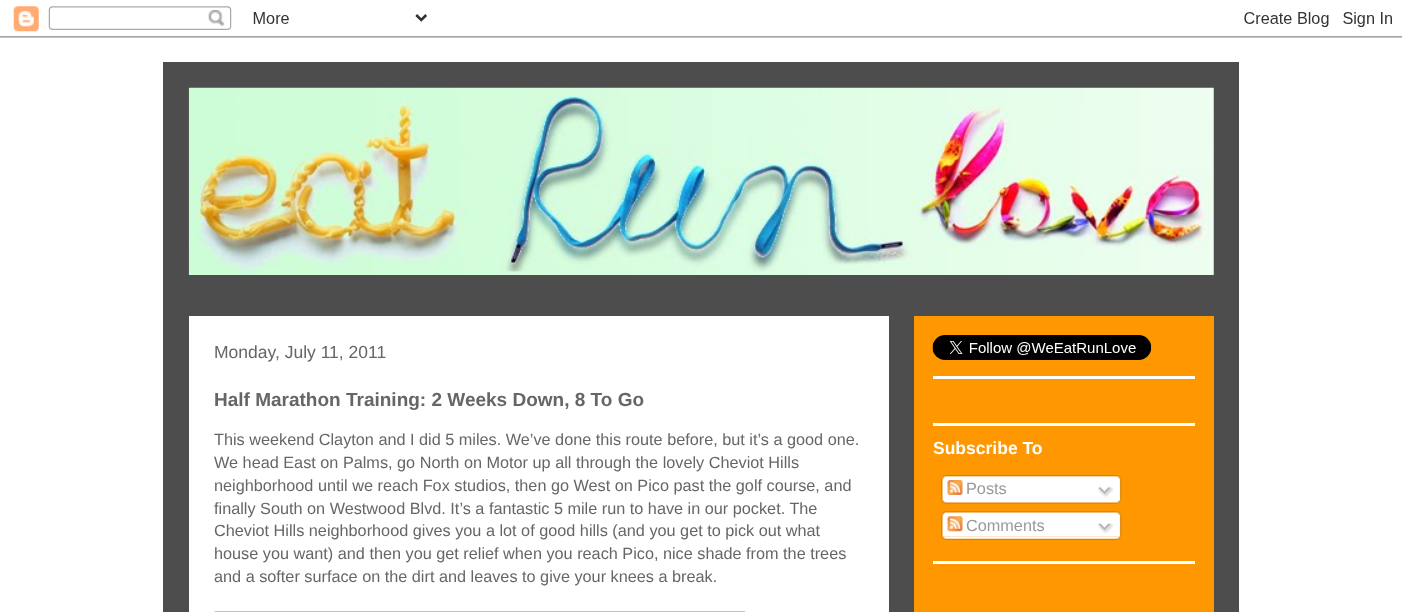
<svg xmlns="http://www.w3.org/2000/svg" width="1402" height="612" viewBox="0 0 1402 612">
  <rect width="100%" height="100%" fill="rgb(255,255,255)"/>
  <image x="0" y="6" width="1402" height="32" href="pic1.png"/>
  <rect x="163" y="62" width="1076" height="550" fill="rgb(77,77,77)"/>
  <image x="188" y="87" width="1026" height="188" href="pic2.png"/>
  <rect x="189" y="316" width="700" height="296" fill="rgb(255,255,255)"/>
  <text x="214" y="358" font-family="Liberation Sans" font-size="17.5" fill="rgb(102,102,102)">Monday, July 11, 2011</text>
  <text x="214" y="406" font-family="Liberation Sans" font-size="19" font-weight="bold" fill="rgb(102,102,102)">Half Marathon Training: 2 Weeks Down, 8 To Go</text>
  <g font-family="Liberation Sans" font-size="16.25" fill="rgb(102,102,102)">
    <text>
      <tspan x="214" y="445">This weekend Clayton and I did 5 miles. We’ve done this route before, but it’s a good one.</tspan>
      <tspan x="214" y="468">We head East on Palms, go North on Motor up all through the lovely Cheviot Hills</tspan>
      <tspan x="214" y="491">neighborhood until we reach Fox studios, then go West on Pico past the golf course, and</tspan>
      <tspan x="214" y="514">finally South on Westwood Blvd. It’s a fantastic 5 mile run to have in our pocket. The</tspan>
      <tspan x="214" y="536">Cheviot Hills neighborhood gives you a lot of good hills (and you get to pick out what</tspan>
      <tspan x="214" y="559">house you want) and then you get relief when you reach Pico, nice shade from the trees</tspan>
      <tspan x="214" y="582">and a softer surface on the dirt and leaves to give your knees a break.</tspan>
    </text>
  </g>
  <image x="214" y="611" width="531" height="1" href="pic3.png"/>
  <rect x="914" y="316" width="300" height="296" fill="rgb(255,151,0)"/>
  <rect x="933" y="376" width="262" height="3" fill="rgb(255,255,255)"/>
  <image x="932" y="335" width="220" height="25" href="pic4.png"/>
  <rect x="933" y="423" width="262" height="3" fill="rgb(255,255,255)"/>
  <rect x="933" y="561" width="262" height="3" fill="rgb(255,255,255)"/>
  <text x="933" y="454" font-family="Liberation Sans" font-size="17.5" font-weight="bold" fill="rgb(255,255,255)">Subscribe To</text>
  <image x="941" y="475" width="181" height="25" href="pic5.png"/>
  <image x="947" y="480" width="16" height="15" href="pic6.png"/>
  <text x="966" y="494" font-family="Liberation Sans" font-size="16.25" fill="rgb(153,153,153)">Posts</text>
  <image x="1097" y="486" width="17" height="12" href="pic7.png"/>
  <image x="941" y="500" width="180" height="4" href="pic8.png"/>
  <image x="941" y="511" width="181" height="26" href="pic9.png"/>
  <image x="947" y="516" width="16" height="16" href="pic10.png"/>
  <text x="966" y="531" font-family="Liberation Sans" font-size="16.25" fill="rgb(153,153,153)">Comments</text>
  <image x="1097" y="523" width="17" height="11" href="pic11.png"/>
  <image x="941" y="536" width="180" height="4" href="pic12.png"/>
</svg>
